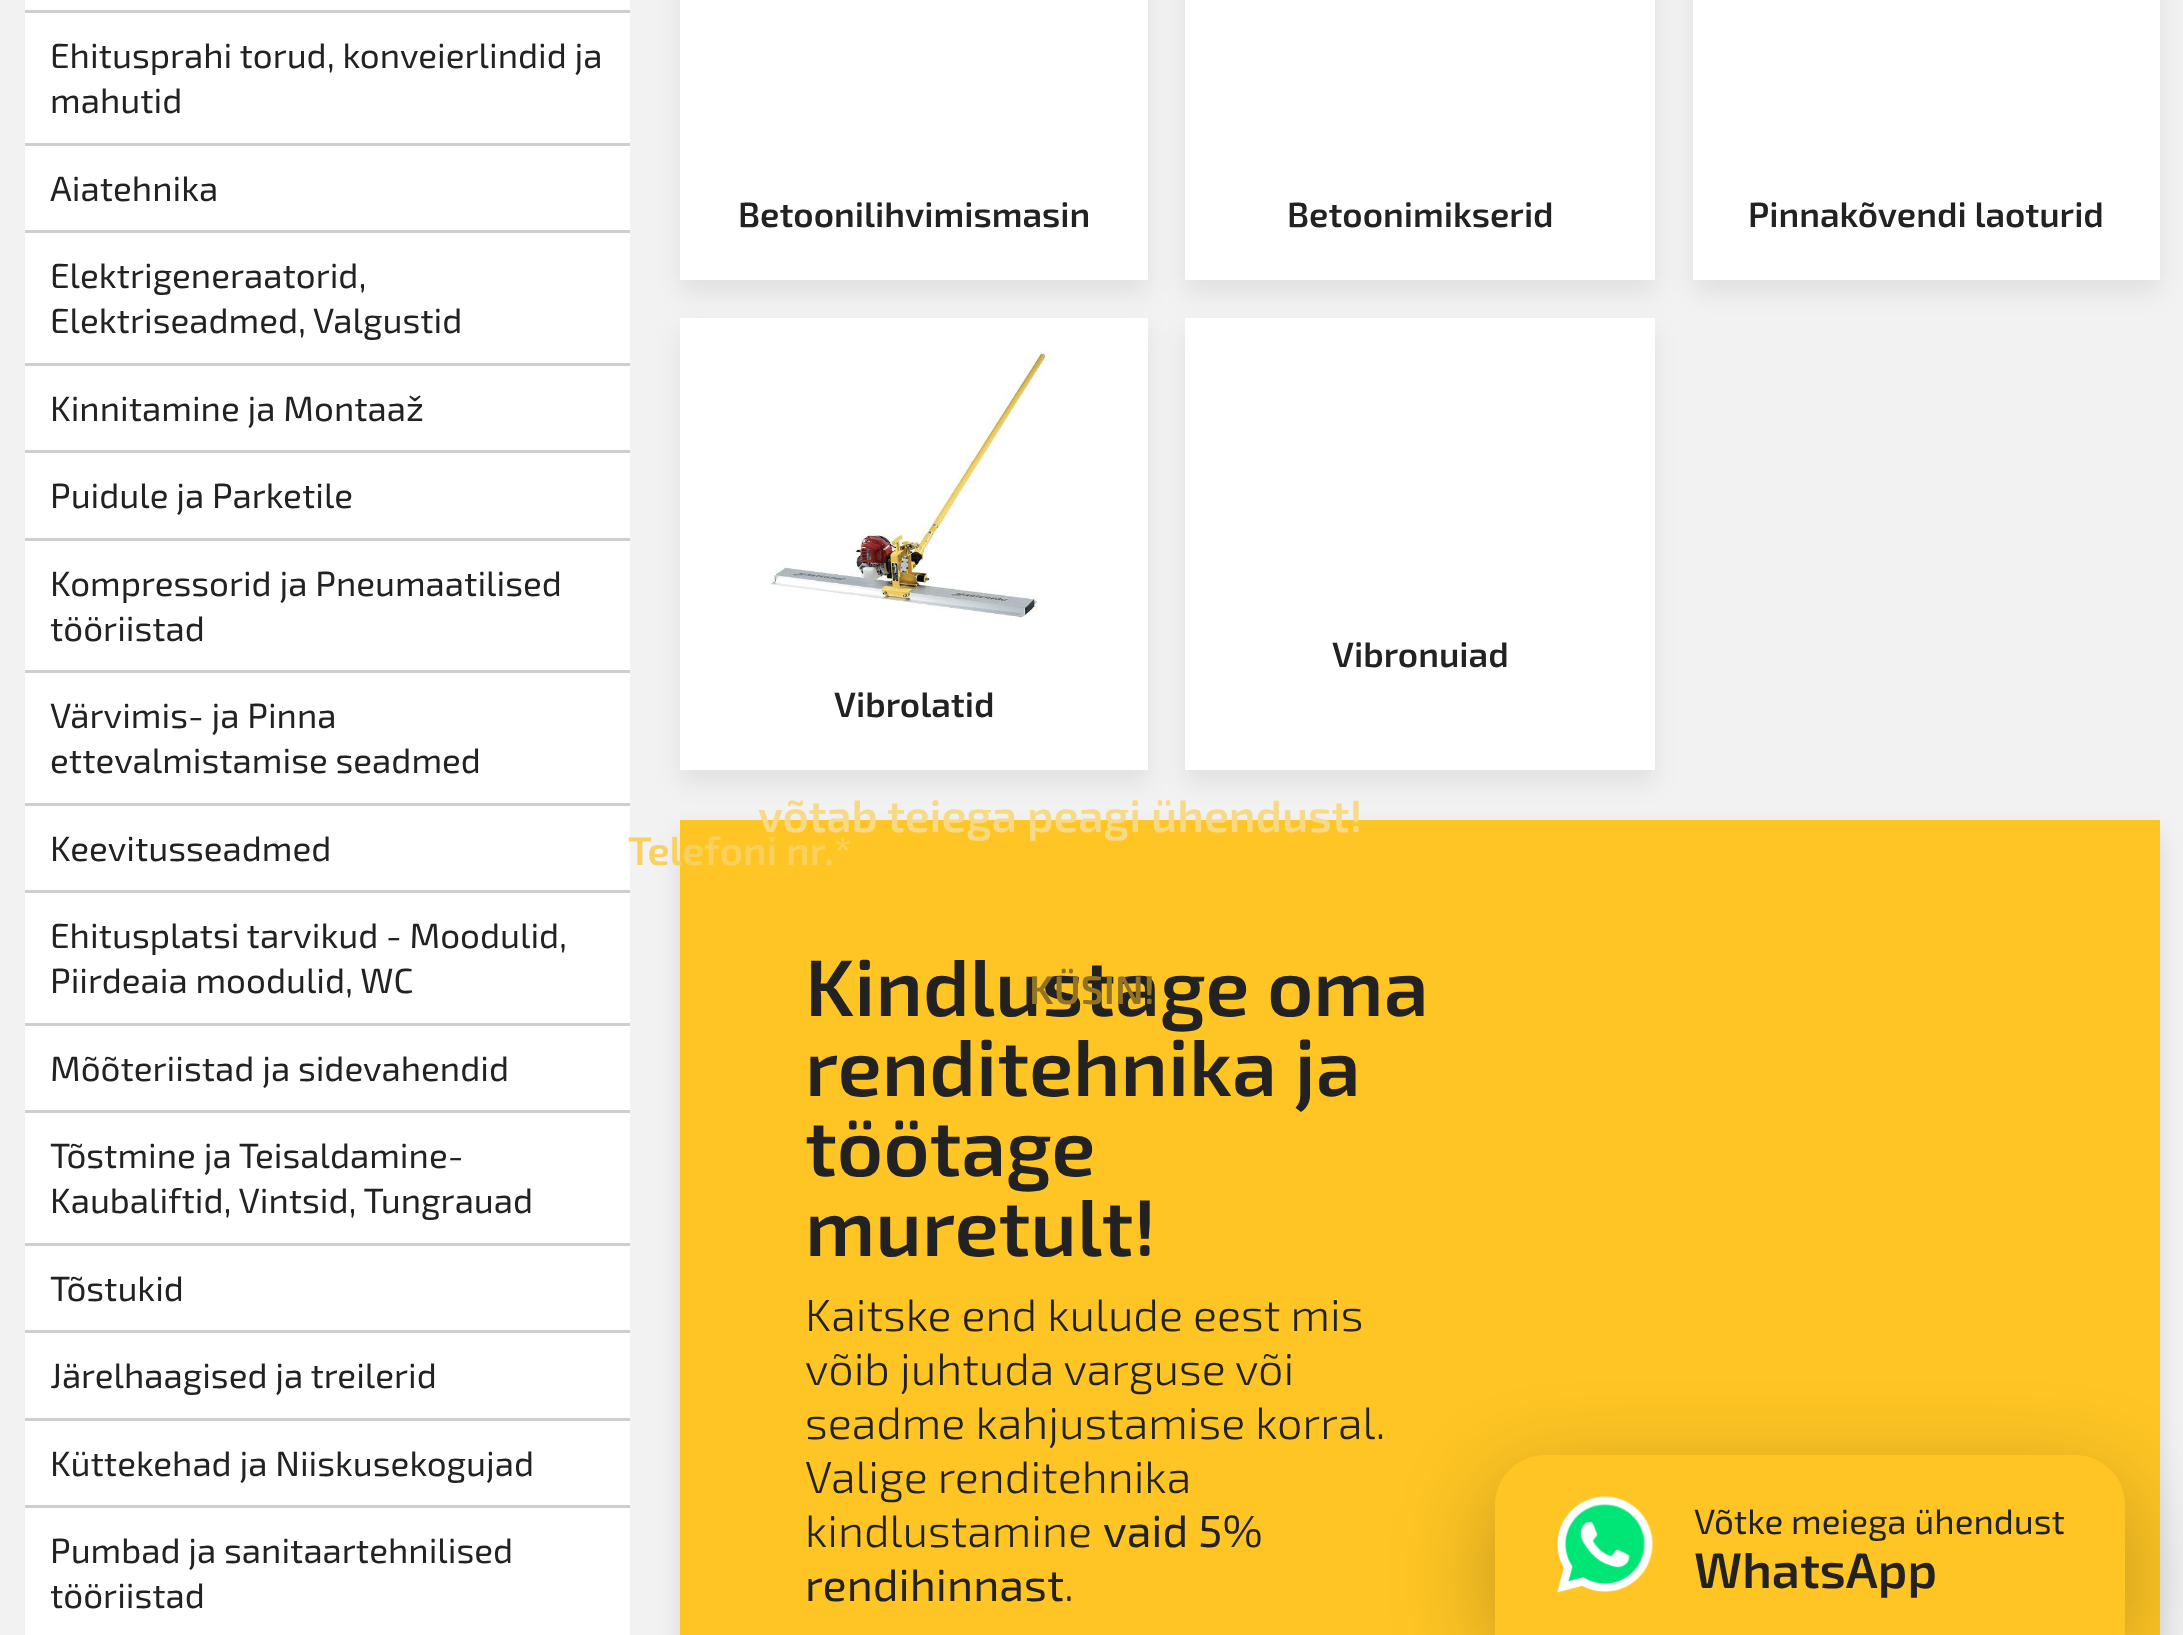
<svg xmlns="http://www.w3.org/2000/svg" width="2183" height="1635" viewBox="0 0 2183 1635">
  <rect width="100%" height="100%" fill="rgb(242,242,242)"/>
  <rect x="25" y="0" width="605" height="1635" fill="rgb(255,255,255)"/>
  <rect x="25" y="10" width="605" height="3" fill="rgb(206,206,206)"/>
  <rect x="25" y="143" width="605" height="3" fill="rgb(206,206,206)"/>
  <g font-family="'Exo 2'" font-size="35" fill="rgb(34,34,34)">
    <text>
      <tspan x="50" y="68">Ehitusprahi torud, konveierlindid ja</tspan>
      <tspan x="50" y="113">mahutid</tspan>
    </text>
  </g>
  <rect x="25" y="230" width="605" height="3" fill="rgb(206,206,206)"/>
  <text x="50" y="201" font-family="'Exo 2'" font-size="35" fill="rgb(34,34,34)">Aiatehnika</text>
  <rect x="25" y="363" width="605" height="3" fill="rgb(206,206,206)"/>
  <g font-family="'Exo 2'" font-size="35" fill="rgb(34,34,34)">
    <text>
      <tspan x="50" y="288">Elektrigeneraatorid,</tspan>
      <tspan x="50" y="333">Elektriseadmed, Valgustid</tspan>
    </text>
  </g>
  <rect x="25" y="450" width="605" height="3" fill="rgb(206,206,206)"/>
  <text x="50" y="421" font-family="'Exo 2'" font-size="35" fill="rgb(34,34,34)">Kinnitamine ja Montaaž</text>
  <rect x="25" y="538" width="605" height="3" fill="rgb(206,206,206)"/>
  <text x="50" y="508" font-family="'Exo 2'" font-size="35" fill="rgb(34,34,34)">Puidule ja Parketile</text>
  <rect x="25" y="670" width="605" height="3" fill="rgb(206,206,206)"/>
  <g font-family="'Exo 2'" font-size="35" fill="rgb(34,34,34)">
    <text>
      <tspan x="50" y="596">Kompressorid ja Pneumaatilised</tspan>
      <tspan x="50" y="641">tööriistad</tspan>
    </text>
  </g>
  <rect x="25" y="803" width="605" height="3" fill="rgb(206,206,206)"/>
  <g font-family="'Exo 2'" font-size="35" fill="rgb(34,34,34)">
    <text>
      <tspan x="50" y="728">Värvimis- ja Pinna</tspan>
      <tspan x="50" y="773">ettevalmistamise seadmed</tspan>
    </text>
  </g>
  <rect x="25" y="890" width="605" height="3" fill="rgb(206,206,206)"/>
  <text x="50" y="861" font-family="'Exo 2'" font-size="35" fill="rgb(34,34,34)">Keevitusseadmed</text>
  <rect x="25" y="1023" width="605" height="3" fill="rgb(206,206,206)"/>
  <g font-family="'Exo 2'" font-size="35" fill="rgb(34,34,34)">
    <text>
      <tspan x="50" y="948">Ehitusplatsi tarvikud - Moodulid,</tspan>
      <tspan x="50" y="993">Piirdeaia moodulid, WC</tspan>
    </text>
  </g>
  <rect x="25" y="1110" width="605" height="3" fill="rgb(206,206,206)"/>
  <text x="50" y="1081" font-family="'Exo 2'" font-size="35" fill="rgb(34,34,34)">Mõõteriistad ja sidevahendid</text>
  <rect x="25" y="1243" width="605" height="3" fill="rgb(206,206,206)"/>
  <g font-family="'Exo 2'" font-size="35" fill="rgb(34,34,34)">
    <text>
      <tspan x="50" y="1168">Tõstmine ja Teisaldamine-</tspan>
      <tspan x="50" y="1213">Kaubaliftid, Vintsid, Tungrauad</tspan>
    </text>
  </g>
  <rect x="25" y="1330" width="605" height="3" fill="rgb(206,206,206)"/>
  <text x="50" y="1301" font-family="'Exo 2'" font-size="35" fill="rgb(34,34,34)">Tõstukid</text>
  <rect x="25" y="1418" width="605" height="3" fill="rgb(206,206,206)"/>
  <text x="50" y="1388" font-family="'Exo 2'" font-size="35" fill="rgb(34,34,34)">Järelhaagised ja treilerid</text>
  <rect x="25" y="1505" width="605" height="3" fill="rgb(206,206,206)"/>
  <g font-family="'Exo 2'" font-size="35" fill="rgb(34,34,34)">
    <text x="50" y="1476">Küttekehad ja Niiskusekogujad</text>
    <text>
      <tspan x="50" y="1563">Pumbad ja sanitaartehnilised</tspan>
      <tspan x="50" y="1608">tööriistad</tspan>
    </text>
  </g>
  <rect x="680" y="-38" width="468" height="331" fill="rgba(0,0,0,0.07)" filter="blur(12.5px)"/>
  <rect x="680" y="0" width="468" height="280" fill="rgb(255,255,255)"/>
  <text x="738" y="227" font-family="'Exo 2'" font-size="35" font-weight="600" fill="rgb(34,34,34)">Betoonilihvimismasin</text>
  <rect x="1185" y="-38" width="470" height="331" fill="rgba(0,0,0,0.07)" filter="blur(12.5px)"/>
  <rect x="1185" y="0" width="470" height="280" fill="rgb(255,255,255)"/>
  <text x="1287" y="227" font-family="'Exo 2'" font-size="35" font-weight="600" fill="rgb(34,34,34)">Betoonimikserid</text>
  <rect x="1693" y="-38" width="467" height="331" fill="rgba(0,0,0,0.07)" filter="blur(12.5px)"/>
  <rect x="1693" y="0" width="467" height="280" fill="rgb(255,255,255)"/>
  <text x="1748" y="227" font-family="'Exo 2'" font-size="35" font-weight="600" fill="rgb(34,34,34)">Pinnakõvendi laoturid</text>
  <rect x="680" y="330" width="468" height="453" fill="rgba(0,0,0,0.07)" filter="blur(12.5px)"/>
  <rect x="680" y="318" width="468" height="452" fill="rgb(255,255,255)"/>
  <rect x="1185" y="330" width="470" height="453" fill="rgba(0,0,0,0.07)" filter="blur(12.5px)"/>
  <rect x="1185" y="318" width="470" height="452" fill="rgb(255,255,255)"/>
  <text x="1332" y="667" font-family="'Exo 2'" font-size="35" font-weight="600" fill="rgb(34,34,34)">Vibronuiad</text>
  <image x="770" y="351" width="283" height="269" href="pic1.png"/>
  <text x="834" y="717" font-family="'Exo 2'" font-size="35" font-weight="600" fill="rgb(34,34,34)">Vibrolatid</text>
  <rect x="680" y="833" width="1480" height="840" fill="rgba(0,0,0,0.1)" filter="blur(12.5px)"/>
  <rect x="680" y="820" width="1480" height="815" fill="rgb(254,197,36)"/>
  <g font-family="'Exo 2'" font-size="80" font-weight="600" fill="rgb(34,34,34)">
    <text>
      <tspan x="805" y="1016">Kindlustage oma</tspan>
      <tspan x="805" y="1096">renditehnika ja</tspan>
      <tspan x="805" y="1176">töötage</tspan>
      <tspan x="805" y="1256">muretult!</tspan>
    </text>
  </g>
  <g font-family="'Exo 2'" font-size="45" font-weight="300" fill="rgb(34,34,34)">
    <text>
      <tspan x="805" y="1331">Kaitske end kulude eest mis</tspan>
      <tspan x="805" y="1385">võib juhtuda varguse või</tspan>
      <tspan x="805" y="1439">seadme kahjustamise korral.</tspan>
      <tspan x="805" y="1493">Valige renditehnika</tspan>
      <tspan x="805" y="1547">kindlustamine</tspan>
    </text>
  </g>
  <g font-family="'Exo 2'" font-size="45" fill="rgb(34,34,34)">
    <text x="1103" y="1547">vaid 5%</text>
    <text x="805" y="1601">rendihinnast</text>
  </g>
  <text x="1064" y="1601" font-family="'Exo 2'" font-size="45" font-weight="300" fill="rgb(34,34,34)">.</text>
  <text x="758" y="832" font-family="'Exo 2'" font-size="45" font-weight="600" fill="rgb(247,218,136)">võtab teiega peagi ühendust!</text>
  <text x="628" y="865" font-family="'Exo 2'" font-size="40" font-weight="600" fill="rgb(250,209,95)">Telefoni nr.*</text>
  <text x="1029" y="1004" font-family="'Exo 2'" font-size="40" font-weight="600" fill="rgb(145,116,35)">KÜSIN!</text>
  <rect x="1495" y="1485" width="630" height="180" rx="50" fill="rgba(0,0,0,0.25)" filter="blur(49px)"/>
  <path d="M1545 1455H2075C2102.5 1455 2125 1477.5 2125 1505V1635H1495V1505C1495 1477.5 1517.5 1455 1545 1455Z" fill="rgb(254,197,36)"/>
  <image x="1556" y="1496" width="98" height="97" href="pic2.png"/>
  <text x="1694" y="1534" font-family="'Exo 2'" font-size="35" fill="rgb(34,34,34)">Võtke meiega ühendust</text>
  <text x="1694" y="1588" font-family="'Exo 2'" font-size="50" font-weight="600" fill="rgb(34,34,34)">WhatsApp</text>
</svg>
